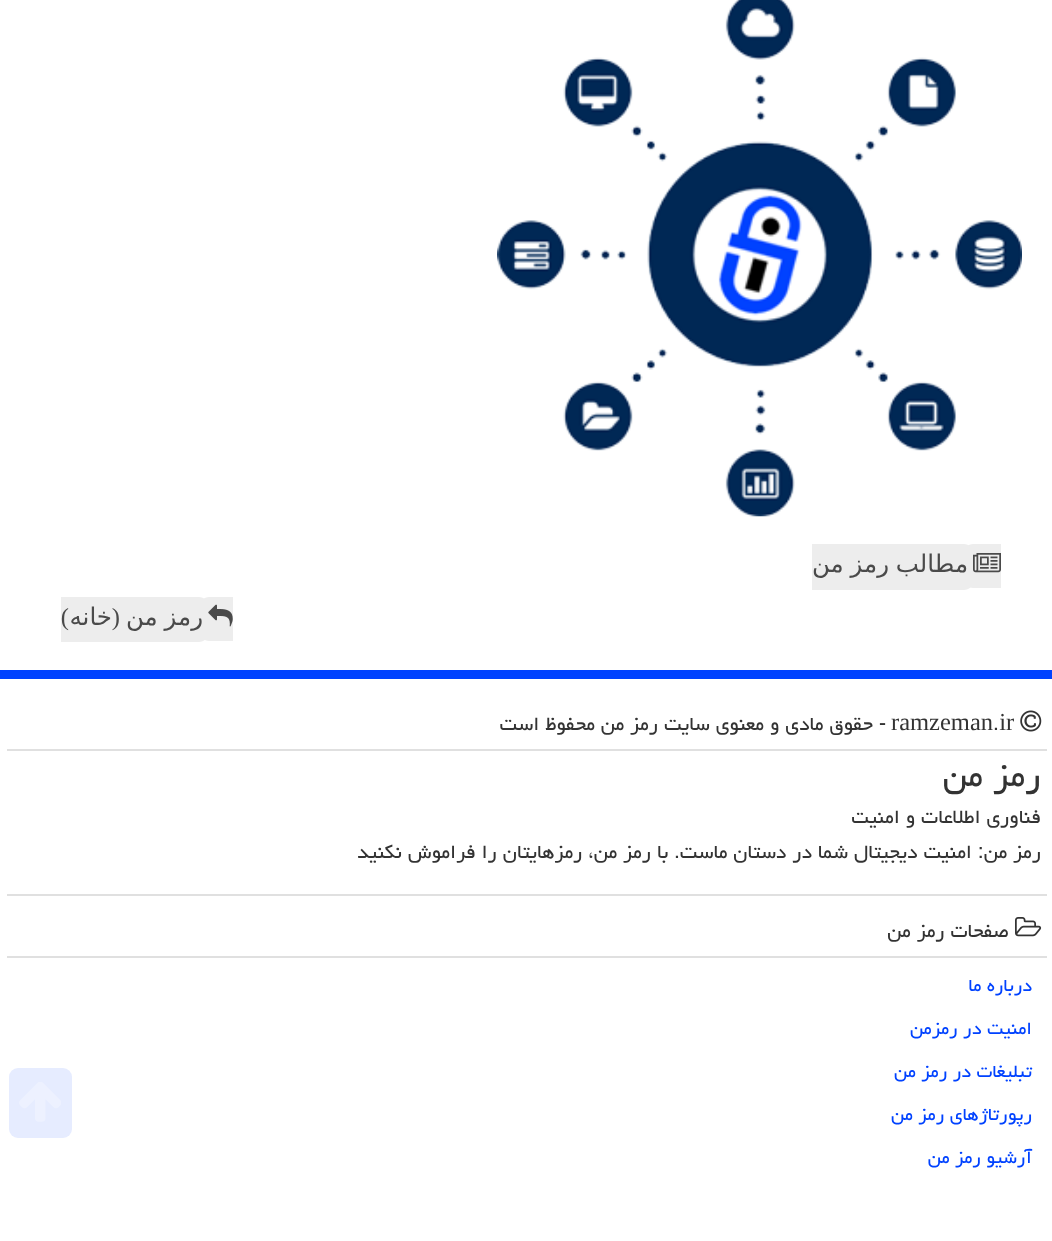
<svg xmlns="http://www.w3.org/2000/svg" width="1052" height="1241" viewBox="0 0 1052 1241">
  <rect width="100%" height="100%" fill="rgb(255,255,255)"/>
  <image x="497" y="0" width="525" height="517" href="pic1.png"/>
  <path d="M973 544H1001V588H973C968 588 964 584 964 579V553C964 548 968 544 973 544Z" fill="rgb(237,237,237)"/>
  <path d="M812 544H964C969 544 973 548 973 553V581C973 586 969 590 964 590H812Z" fill="rgb(237,237,237)"/>
  <image x="973" y="553" width="28" height="20" href="pic2.png"/>
  <text x="968" y="572" word-spacing="-1" font-family="DejaVu Sans" font-size="24.5" direction="rtl" fill="rgb(74,74,74)">مطالب رمز من</text>
  <path d="M209 597H233V641H209C204 641 200 637 200 632V606C200 601 204 597 209 597Z" fill="rgb(237,237,237)"/>
  <path d="M61 597H199C204 597 208 601 208 606V633C208 638 204 642 199 642H61Z" fill="rgb(237,237,237)"/>
  <image x="208" y="604" width="25" height="23" href="pic3.png"/>
  <text x="203" y="625" word-spacing="-1" font-family="DejaVu Sans" font-size="24.5" direction="rtl" fill="rgb(74,74,74)">رمز من</text>
  <text x="120" y="625" font-family="Liberation Serif" font-size="24.5" direction="rtl" fill="rgb(74,74,74)">(</text>
  <text x="112" y="625" font-family="DejaVu Sans" font-size="24.5" direction="rtl" fill="rgb(74,74,74)">خانه</text>
  <text x="69" y="625" font-family="Liberation Serif" font-size="24.5" direction="rtl" fill="rgb(74,74,74)">)</text>
  <rect x="9" y="1068" width="63" height="70" rx="9" fill="rgb(230,236,255)"/>
  <image x="19" y="1082" width="42" height="40" href="pic4.png"/>
  <rect x="0" y="670" width="1052" height="9" fill="rgb(0,66,255)"/>
  <rect x="7" y="749" width="1040" height="2" fill="rgb(224,224,224)"/>
  <image x="1020" y="710" width="22" height="22" href="pic5.png"/>
  <text x="891" y="730" font-family="Liberation Serif" font-size="24.5" fill="rgb(51,51,51)">ramzeman ir</text>
  <text x="886" y="730" font-family="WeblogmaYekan" font-size="24.5" direction="rtl" fill="rgb(51,51,51)">- حقوق مادی و معنوی سایت رمز من محفوظ است</text>
  <text x="993" y="730" font-family="WeblogmaYekan" font-size="24.5" fill="rgb(51,51,51)">.</text>
  <rect x="7" y="894" width="1040" height="2" fill="rgb(224,224,224)"/>
  <text x="1041" y="786" font-family="WeblogmaYekan" font-size="42" direction="rtl" fill="rgb(51,51,51)">رمز من</text>
  <g font-family="WeblogmaYekan" font-size="24.5" direction="rtl" fill="rgb(51,51,51)">
    <text>
      <tspan x="1041" y="823">فناوری اطلاعات و امنیت</tspan>
      <tspan x="1041" y="858">رمز من: امنیت دیجیتال شما در دستان ماست. با رمز من، رمزهایتان را فراموش نکنید</tspan>
    </text>
  </g>
  <rect x="7" y="956" width="1040" height="2" fill="rgb(224,224,224)"/>
  <image x="1015" y="917" width="27" height="20" href="pic6.png"/>
  <text x="1009" y="937" font-family="WeblogmaYekan" font-size="24.5" direction="rtl" fill="rgb(51,51,51)">صفحات رمز من</text>
  <g font-family="WeblogmaYekan" font-size="22.75" direction="rtl" fill="rgb(0,66,255)">
    <text>
      <tspan x="1032" y="991">درباره ما</tspan>
      <tspan x="1032" y="1034">امنیت در رمزمن</tspan>
      <tspan x="1032" y="1077">تبلیغات در رمز من</tspan>
      <tspan x="1032" y="1120">رپورتاژهای رمز من</tspan>
      <tspan x="1032" y="1163">آرشیو رمز من</tspan>
    </text>
  </g>
</svg>
